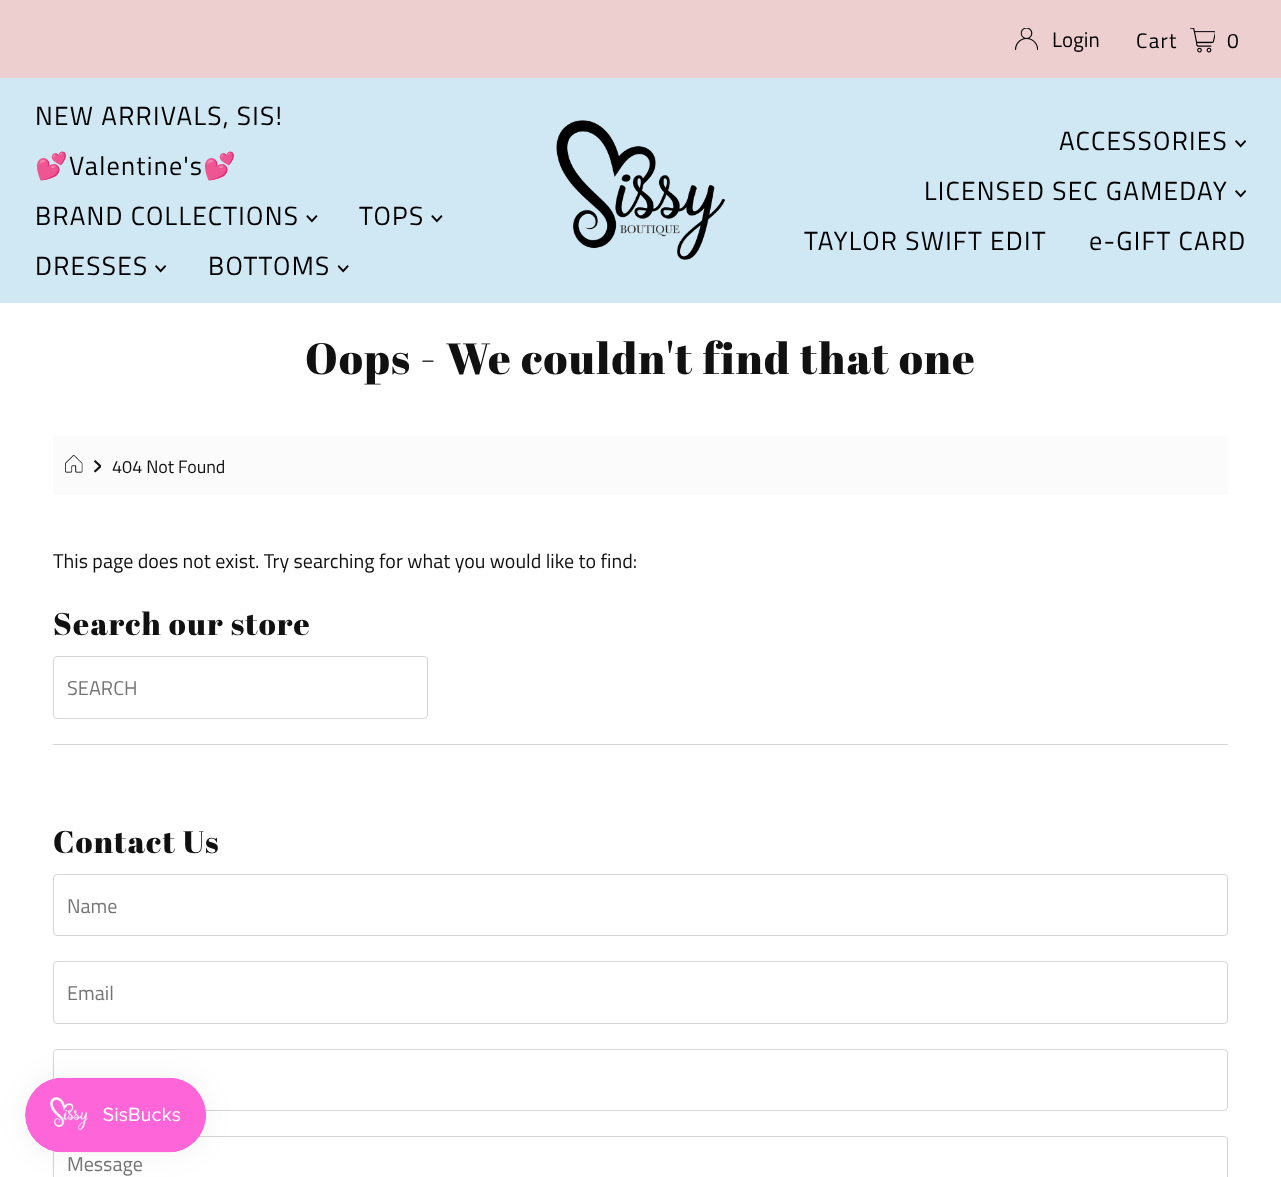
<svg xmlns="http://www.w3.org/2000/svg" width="1281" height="1177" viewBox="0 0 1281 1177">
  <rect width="100%" height="100%" fill="rgb(255,255,255)"/>
  <rect x="0" y="0" width="1281" height="78" fill="rgb(237,207,207)"/>
  <image x="1015" y="28" width="23" height="22" href="pic1.png"/>
  <text x="1052" y="47" font-family="Titillium Web" font-size="21" fill="rgb(0,0,0)">Login</text>
  <text x="1136" y="48" font-family="Titillium Web" font-size="21" letter-spacing="1.25" fill="rgb(0,0,0)">Cart</text>
  <image x="1190" y="28" width="25" height="25" href="pic2.png"/>
  <text x="1227" y="48" font-family="Titillium Web" font-size="21" letter-spacing="1.25" fill="rgb(0,0,0)">0</text>
  <rect x="0" y="78" width="1281" height="225" fill="rgb(207,232,244)"/>
  <text x="35" y="125" font-family="Titillium Web" font-size="26.25" letter-spacing="1.25" fill="rgb(0,0,0)">NEW ARRIVALS, SIS!</text>
  <text x="35" y="175" font-family="Noto Color Emoji" font-size="26.25" letter-spacing="1.25" fill="rgb(0,0,0)">💕</text>
  <text x="69" y="175" font-family="Titillium Web" font-size="26.25" letter-spacing="1.25" fill="rgb(0,0,0)">Valentine's</text>
  <text x="203" y="175" font-family="Noto Color Emoji" font-size="26.25" letter-spacing="1.25" fill="rgb(0,0,0)">💕</text>
  <text x="35" y="225" font-family="Titillium Web" font-size="26.25" letter-spacing="1.25" fill="rgb(0,0,0)">BRAND COLLECTIONS</text>
  <image x="306" y="215" width="12" height="8" href="pic3.png"/>
  <text x="359" y="225" font-family="Titillium Web" font-size="26.25" letter-spacing="1.25" fill="rgb(0,0,0)">TOPS</text>
  <image x="431" y="215" width="12" height="8" href="pic3.png"/>
  <text x="35" y="275" font-family="Titillium Web" font-size="26.25" letter-spacing="1.25" fill="rgb(0,0,0)">DRESSES</text>
  <image x="155" y="265" width="11" height="8" href="pic4.png"/>
  <text x="208" y="275" font-family="Titillium Web" font-size="26.25" letter-spacing="1.25" fill="rgb(0,0,0)">BOTTOMS</text>
  <image x="338" y="265" width="11" height="8" href="pic5.png"/>
  <image x="556" y="120" width="170" height="140" href="pic6.png"/>
  <text x="1059" y="150" font-family="Titillium Web" font-size="26.25" letter-spacing="1.25" fill="rgb(0,0,0)">ACCESSORIES</text>
  <image x="1235" y="140" width="11" height="8" href="pic4.png"/>
  <text x="924" y="200" font-family="Titillium Web" font-size="26.25" letter-spacing="1.25" fill="rgb(0,0,0)">LICENSED SEC GAMEDAY</text>
  <image x="1235" y="190" width="11" height="8" href="pic4.png"/>
  <g font-family="Titillium Web" font-size="26.25" letter-spacing="1.25" fill="rgb(0,0,0)">
    <text x="804" y="250">TAYLOR SWIFT EDIT</text>
    <text x="1089" y="250">e-GIFT CARD</text>
  </g>
  <text x="305" y="374" font-family="Abril Fatface" font-size="43.75" letter-spacing="1.25" fill="rgb(18,17,18)">Oops - We couldn't find that one</text>
  <rect x="53" y="436" width="1175" height="59" fill="rgb(251,251,251)"/>
  <image x="65" y="455" width="18" height="18" href="pic7.png"/>
  <image x="94" y="460" width="7" height="13" href="pic8.png"/>
  <text x="112" y="473" font-family="Titillium Web" font-size="18" fill="rgb(18,17,18)">404 Not Found</text>
  <text x="53" y="568" font-family="Titillium Web" font-size="20" fill="rgb(18,17,18)">This page does not exist. Try searching for what you would like to find:</text>
  <rect x="53" y="744" width="1175" height="1" fill="rgb(213,213,213)"/>
  <text x="53" y="635" font-family="Abril Fatface" font-size="31.25" letter-spacing="1.25" fill="rgb(18,17,18)">Search our store</text>
  <rect x="53.5" y="656.5" width="374" height="62" rx="3.5" fill="none" stroke="rgb(213,213,213)"/>
  <text x="67" y="695" font-family="Titillium Web" font-size="20" fill="rgb(117,117,117)">SEARCH</text>
  <text x="53" y="853" font-family="Abril Fatface" font-size="31.25" letter-spacing="1.25" fill="rgb(18,17,18)">Contact Us</text>
  <rect x="53.5" y="874.5" width="1174" height="61" rx="3.5" fill="none" stroke="rgb(213,213,213)"/>
  <text x="67" y="913" font-family="Titillium Web" font-size="20" fill="rgb(117,117,117)">Name</text>
  <rect x="53.5" y="961.5" width="1174" height="62" rx="3.5" fill="none" stroke="rgb(213,213,213)"/>
  <text x="67" y="1000" font-family="Titillium Web" font-size="20" fill="rgb(117,117,117)">Email</text>
  <rect x="53.5" y="1049.5" width="1174" height="61" rx="3.5" fill="none" stroke="rgb(213,213,213)"/>
  <rect x="53.5" y="1136.5" width="1174" height="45" rx="3.5" fill="none" stroke="rgb(213,213,213)"/>
  <text x="67" y="1171" font-family="Titillium Web" font-size="20" fill="rgb(117,117,117)">Message</text>
  <rect x="25" y="1078" width="181" height="75" rx="37.5" fill="rgba(0,0,0,0.05)" filter="blur(15.5px)"/>
  <image x="25" y="1077" width="181" height="76" href="pic9.png"/>
</svg>
